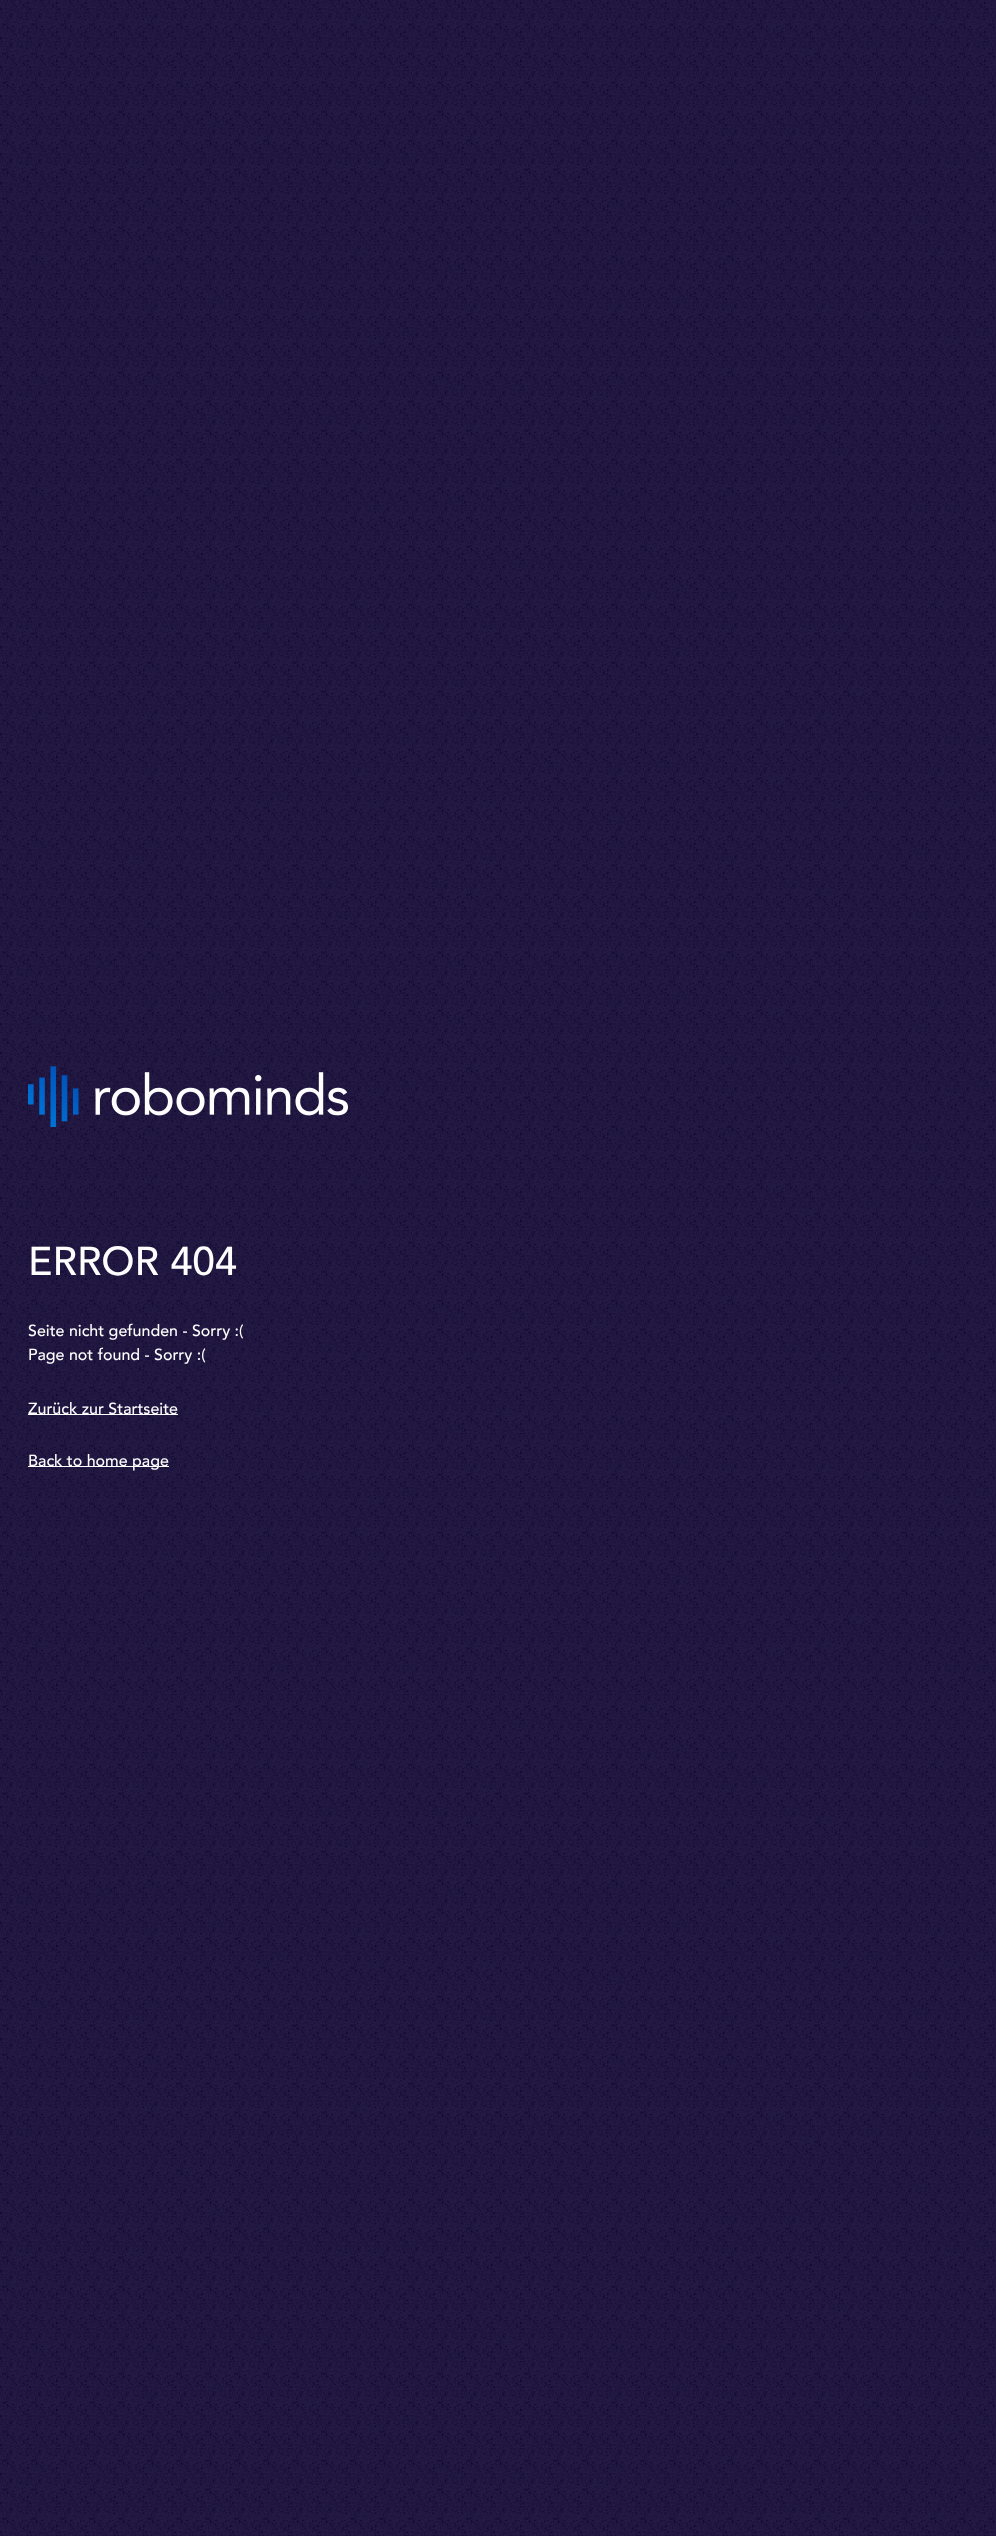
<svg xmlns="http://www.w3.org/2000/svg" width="996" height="2536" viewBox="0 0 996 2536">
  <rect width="100%" height="100%" fill="rgb(255,255,255)"/>
  <image x="0" y="0" width="996" height="2536" href="pic1.png"/>
  <image x="28" y="1066" width="320" height="61" href="pic2.png"/>
  <text x="28" y="1275" font-family="Avenir" font-size="40" font-weight="500" fill="rgb(254,254,254)">ERROR 404</text>
  <g font-family="Avenir" font-size="16" font-weight="500" fill="rgb(254,254,254)">
    <text>
      <tspan x="28" y="1336">Seite nicht gefunden - Sorry :(</tspan>
      <tspan x="28" y="1360">Page not found - Sorry :(</tspan>
    </text>
  </g>
  <rect x="28" y="1414" width="150" height="1" fill="rgb(255,255,255)"/>
  <text x="28" y="1414" font-family="Avenir" font-size="16" font-weight="500" fill="rgb(254,254,254)">Zurück zur Startseite</text>
  <rect x="28" y="1466" width="141" height="1" fill="rgb(255,255,255)"/>
  <text x="28" y="1466" font-family="Avenir" font-size="16" font-weight="500" fill="rgb(254,254,254)">Back to home page</text>
</svg>
